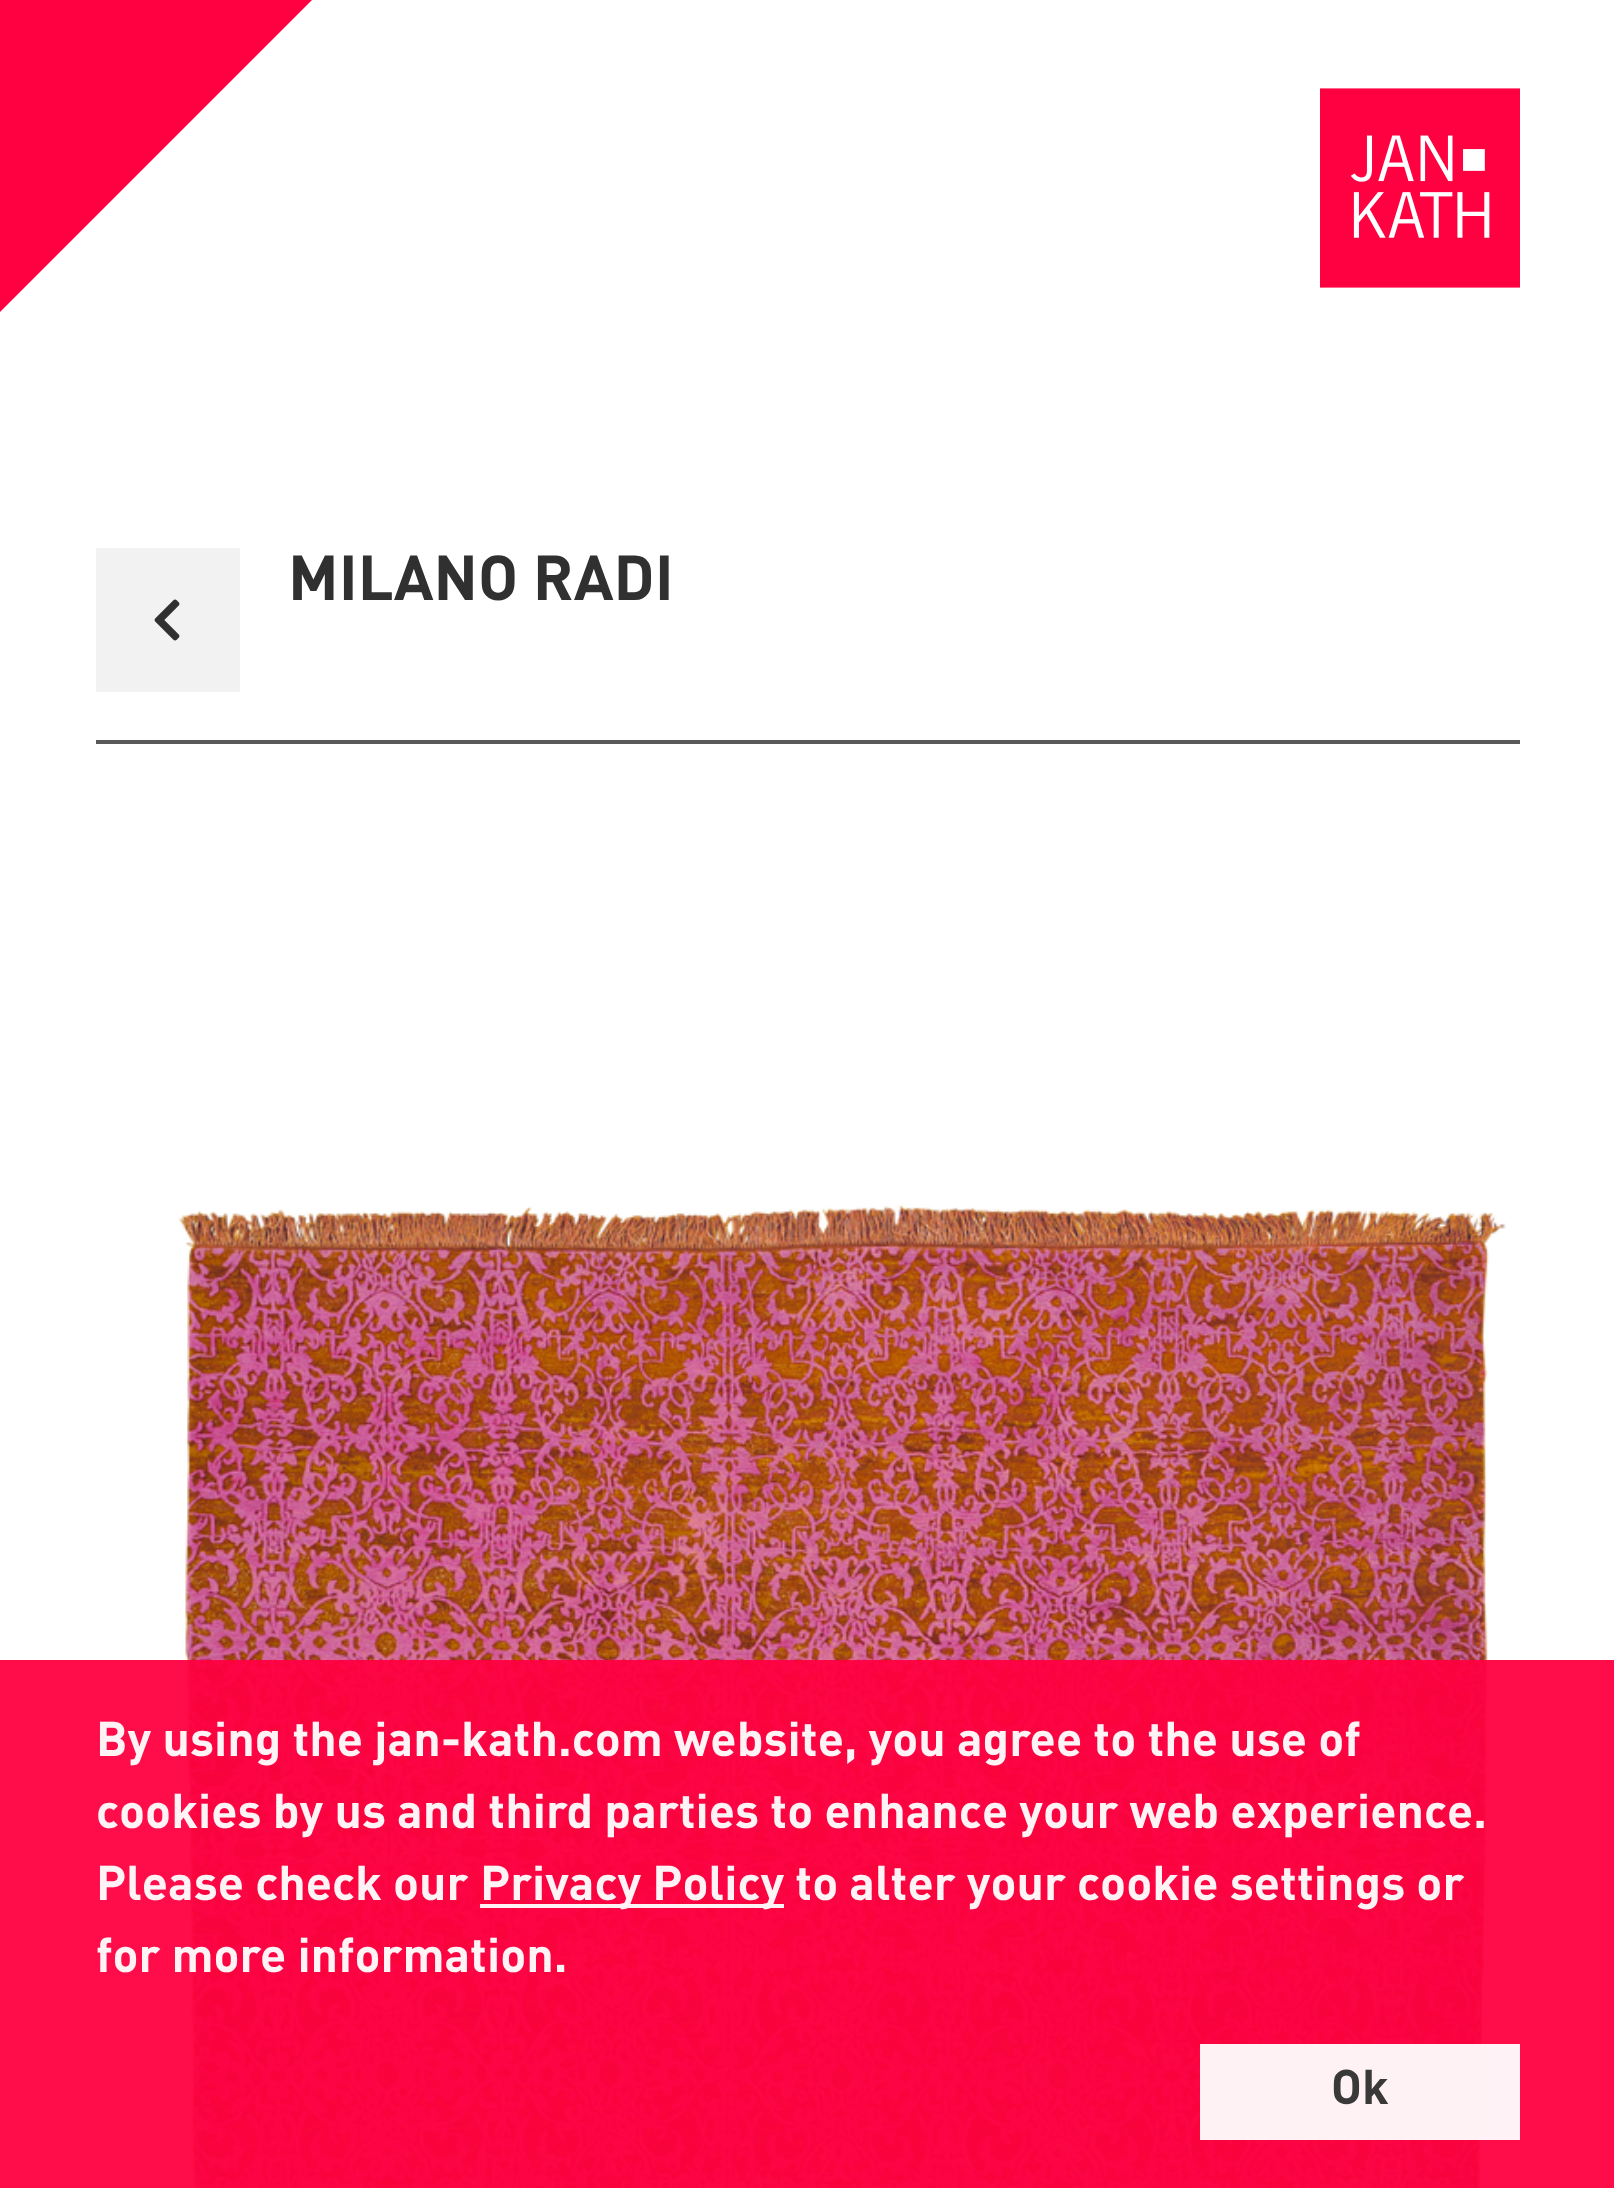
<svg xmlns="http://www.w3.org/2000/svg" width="1614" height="2188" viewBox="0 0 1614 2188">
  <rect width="100%" height="100%" fill="rgb(255,255,255)"/>
  <path d="M156 156L0 312V0H312Z" fill="rgb(255,0,64)"/>
  <image x="1320" y="88" width="200" height="200" href="pic1.png"/>
  <rect x="96" y="740" width="1424" height="4" fill="rgb(89,89,89)"/>
  <rect x="96" y="548" width="144" height="144" fill="rgb(242,242,242)"/>
  <image x="154" y="599" width="26" height="42" href="pic2.png"/>
  <text x="288" y="600" font-family="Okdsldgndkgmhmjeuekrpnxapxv" font-size="62.5" font-weight="bold" fill="rgb(48,48,48)">MILANO RADI</text>
  <image x="178" y="1204" width="1328" height="984" href="pic3.png"/>
  <rect x="0" y="1660" width="1614" height="528" fill="rgba(255,0,64,0.95)"/>
  <g font-family="Okdsldgndkgmhmjeuekrpnxapxv" font-size="48" font-weight="bold" fill="rgb(255,243,246)">
    <text>
      <tspan x="96" y="1756">By using the jan-kath.com website, you agree to the use of</tspan>
      <tspan x="96" y="1828">cookies by us and third parties to enhance your web experience.</tspan>
      <tspan x="96" y="1900">Please check our</tspan>
    </text>
  </g>
  <rect x="480" y="1904" width="304" height="4" fill="rgba(255,255,255,0.95)"/>
  <g font-family="Okdsldgndkgmhmjeuekrpnxapxv" font-size="48" font-weight="bold" fill="rgb(255,243,246)">
    <text x="480" y="1900">Privacy Policy to alter your cookie settings or</text>
    <text x="96" y="1972">for more information.</text>
  </g>
  <rect x="1200" y="2044" width="320" height="96" fill="rgba(255,255,255,0.95)"/>
  <text x="1331" y="2104" font-family="Okdsldgndkgmhmjeuekrpnxapxv" font-size="48" font-weight="bold" fill="rgb(58,57,57)">Ok</text>
</svg>
